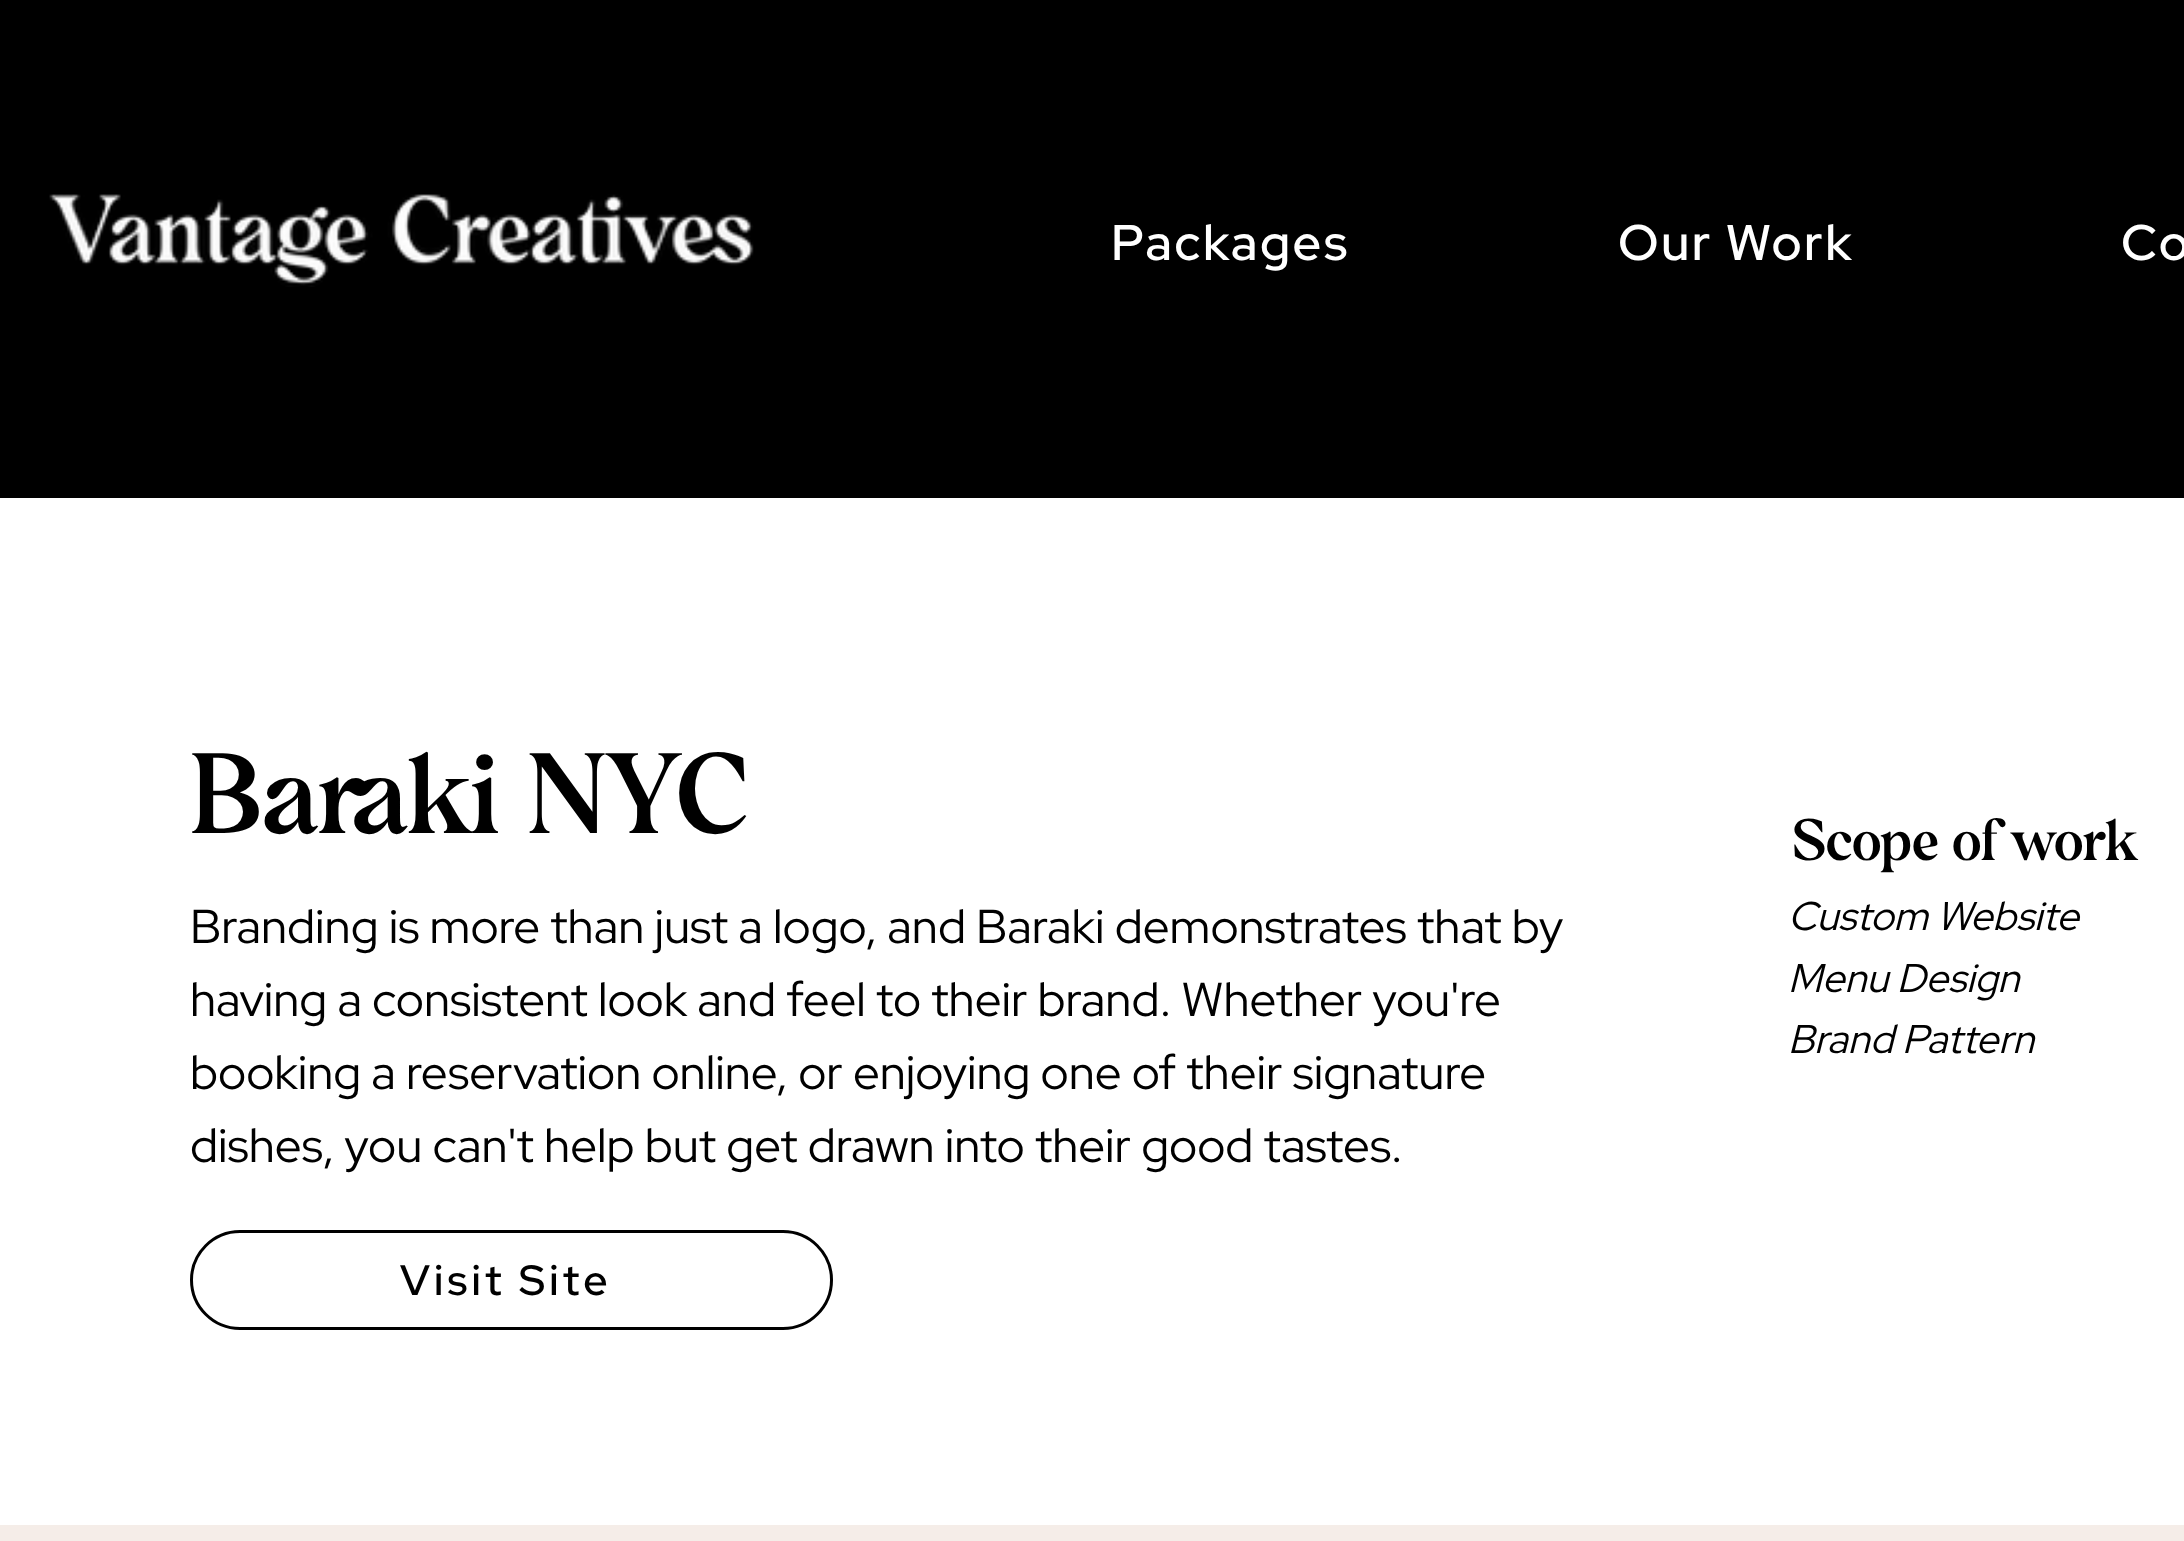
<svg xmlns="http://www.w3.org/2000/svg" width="2184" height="1541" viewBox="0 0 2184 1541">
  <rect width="100%" height="100%" fill="rgb(0,0,0)"/>
  <image x="49" y="194" width="705" height="93" href="pic1.png"/>
  <g font-family="Red Hat Display" font-size="50" font-weight="500" letter-spacing="2.5" fill="rgb(255,255,255)">
    <text x="1111" y="260">Packages</text>
    <text x="1618" y="260">Our Work</text>
    <text x="2121" y="260">Co</text>
  </g>
  <rect x="0" y="498" width="2184" height="1027" fill="rgb(255,255,255)"/>
  <text x="190" y="833" font-family="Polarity" font-size="112.5" fill="rgb(0,0,0)">Baraki NYC</text>
  <text x="1793" y="860" font-family="Polarity" font-size="57.5" fill="rgb(0,0,0)">Scope of work</text>
  <g font-family="Red Hat Display" font-size="47.5" fill="rgb(0,0,0)">
    <text>
      <tspan x="190" y="943">Branding is more than just a logo, and Baraki demonstrates that by</tspan>
      <tspan x="190" y="1016">having a consistent look and feel to their brand. Whether you're</tspan>
      <tspan x="190" y="1089">booking a reservation online, or enjoying one of their signature</tspan>
      <tspan x="190" y="1162">dishes, you can't help but get drawn into their good tastes.</tspan>
    </text>
  </g>
  <g font-family="Red Hat Display" font-size="40" font-style="italic" fill="rgb(0,0,0)">
    <text>
      <tspan x="1788" y="930">Custom Website</tspan>
      <tspan x="1788" y="992">Menu Design</tspan>
      <tspan x="1788" y="1053">Brand Pattern</tspan>
    </text>
  </g>
  <rect x="191.5" y="1231.5" width="640" height="97" rx="48.5" fill="none" stroke="rgb(0,0,0)" stroke-width="3"/>
  <text x="400" y="1295" font-family="Red Hat Display" font-size="42.5" font-weight="500" letter-spacing="4.25" fill="rgb(0,0,0)">Visit Site</text>
  <rect x="0" y="1525" width="2184" height="16" fill="rgb(245,237,232)"/>
</svg>
